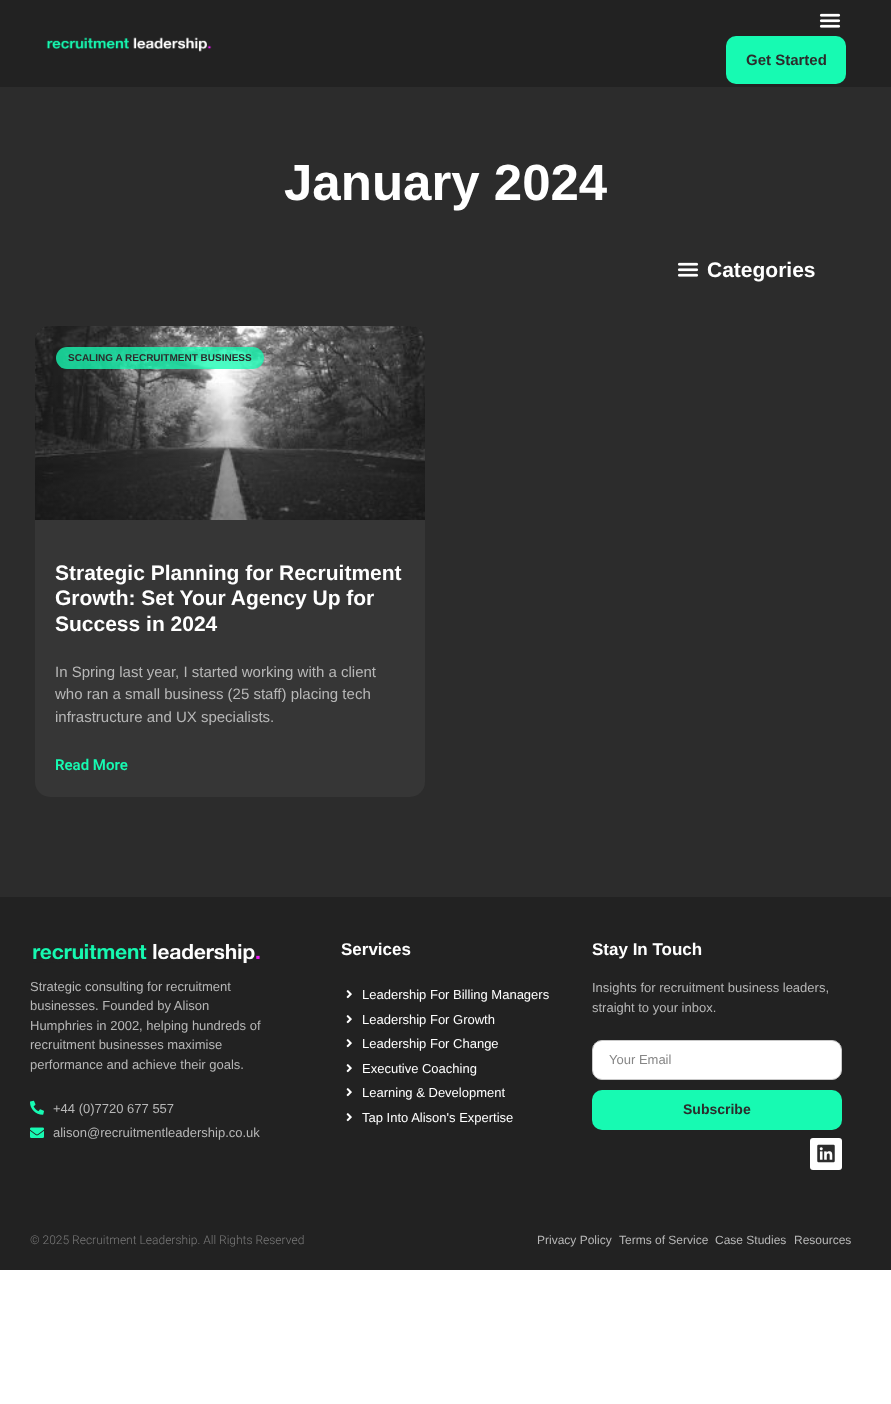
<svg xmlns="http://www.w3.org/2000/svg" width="891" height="1404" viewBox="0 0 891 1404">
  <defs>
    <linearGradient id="g1" gradientUnits="userSpaceOnUse" x1="230" y1="520" x2="230" y2="326"><stop offset="0" stop-color="rgb(0,0,0)" stop-opacity="0.35"/><stop offset="0.75" stop-color="rgb(0,0,0)" stop-opacity="0"/></linearGradient>
  </defs>
  <rect width="100%" height="100%" fill="rgb(255,255,255)"/>
  <rect x="0" y="0" width="891" height="87" fill="rgb(34,34,34)"/>
  <image x="46" y="37" width="166" height="15" href="pic1.png"/>
  <image x="819" y="13" width="22" height="15" href="pic2.png"/>
  <rect x="726" y="36" width="120" height="48" rx="10" fill="rgb(23,250,178)"/>
  <text x="746" y="65" font-family="Liberation Sans" font-size="15" font-weight="bold" fill="rgb(44,44,44)">Get Started</text>
  <rect x="0" y="87" width="891" height="810" fill="rgb(44,44,44)"/>
  <text x="284" y="200" font-family="Liberation Sans" font-size="51" font-weight="bold" fill="rgb(255,255,255)">January 2024</text>
  <image x="677" y="262" width="22" height="15" href="pic3.png"/>
  <text x="707" y="277" font-family="Liberation Sans" font-size="21" font-weight="bold" fill="rgb(255,255,255)">Categories</text>
  <rect x="35" y="326" width="390" height="471" rx="15" fill="rgb(54,54,54)"/>
  <image x="35" y="326" width="390" height="194" href="pic4.png"/>
  <rect x="35" y="383" width="390" height="137" fill="url(#g1)"/>
  <rect x="56" y="347" width="208" height="22" rx="11" fill="rgba(23,250,178,0.78)"/>
  <text x="68" y="361" font-family="Liberation Sans" font-size="10" font-weight="bold" fill="rgb(44,44,44)">SCALING A RECRUITMENT BUSINESS</text>
  <g font-family="Liberation Sans" font-size="21" font-weight="bold" fill="rgb(255,255,255)">
    <text>
      <tspan x="55" y="580">Strategic Planning for Recruitment</tspan>
      <tspan x="55" y="605">Growth: Set Your Agency Up for</tspan>
      <tspan x="55" y="631">Success in 2024</tspan>
    </text>
  </g>
  <g font-family="Liberation Sans" font-size="15" fill="rgb(183,183,183)">
    <text>
      <tspan x="55" y="677">In Spring last year, I started working with a client</tspan>
      <tspan x="55" y="699">who ran a small business (25 staff) placing tech</tspan>
      <tspan x="55" y="722">infrastructure and UX specialists.</tspan>
    </text>
  </g>
  <text x="55" y="770" font-family="Roboto" font-size="15" font-weight="600" fill="rgb(23,250,178)">Read More</text>
  <rect x="0" y="897" width="891" height="373" fill="rgb(34,34,34)"/>
  <image x="33" y="943" width="227" height="21" href="pic5.png"/>
  <g font-family="Liberation Sans" font-size="13" fill="rgb(183,183,183)">
    <text>
      <tspan x="30" y="991">Strategic consulting for recruitment</tspan>
      <tspan x="30" y="1010">businesses. Founded by Alison</tspan>
      <tspan x="30" y="1030">Humphries in 2002, helping hundreds of</tspan>
      <tspan x="30" y="1049">recruitment businesses maximise</tspan>
      <tspan x="30" y="1069">performance and achieve their goals.</tspan>
    </text>
  </g>
  <image x="30" y="1100" width="14" height="15" href="pic6.png"/>
  <text x="53" y="1113" font-family="Liberation Sans" font-size="13" fill="rgb(183,183,183)">+44 (0)7720 677 557</text>
  <image x="30" y="1127" width="14" height="11" href="pic7.png"/>
  <text x="53" y="1137" font-family="Liberation Sans" font-size="13" fill="rgb(183,183,183)">alison@recruitmentleadership.co.uk</text>
  <text x="341" y="955" font-family="Liberation Sans" font-size="17" font-weight="bold" fill="rgb(255,255,255)">Services</text>
  <image x="346" y="990" width="6" height="9" href="pic8.png"/>
  <text x="362" y="999" font-family="Liberation Sans" font-size="13" fill="rgb(255,255,255)">Leadership For Billing Managers</text>
  <image x="346" y="1015" width="6" height="9" href="pic8.png"/>
  <text x="362" y="1024" font-family="Liberation Sans" font-size="13" fill="rgb(255,255,255)">Leadership For Growth</text>
  <image x="346" y="1039" width="6" height="9" href="pic8.png"/>
  <text x="362" y="1048" font-family="Liberation Sans" font-size="13" fill="rgb(255,255,255)">Leadership For Change</text>
  <image x="346" y="1064" width="6" height="9" href="pic8.png"/>
  <text x="362" y="1073" font-family="Liberation Sans" font-size="13" fill="rgb(255,255,255)">Executive Coaching</text>
  <image x="346" y="1088" width="6" height="9" href="pic8.png"/>
  <text x="362" y="1097" font-family="Liberation Sans" font-size="13" fill="rgb(255,255,255)">Learning &amp; Development</text>
  <image x="346" y="1113" width="6" height="9" href="pic8.png"/>
  <text x="362" y="1122" font-family="Liberation Sans" font-size="13" fill="rgb(255,255,255)">Tap Into Alison's Expertise</text>
  <text x="592" y="955" font-family="Liberation Sans" font-size="17" font-weight="bold" fill="rgb(255,255,255)">Stay In Touch</text>
  <g font-family="Liberation Sans" font-size="13" fill="rgb(183,183,183)">
    <text>
      <tspan x="592" y="992">Insights for recruitment business leaders,</tspan>
      <tspan x="592" y="1012">straight to your inbox.</tspan>
    </text>
  </g>
  <rect x="592.5" y="1040.5" width="249" height="39" rx="9.5" fill="rgb(255,255,255)" stroke="rgb(201,201,201)"/>
  <text x="609" y="1064" font-family="Liberation Sans" font-size="13" fill="rgb(134,134,134)">Your Email</text>
  <rect x="592" y="1090" width="250" height="40" rx="10" fill="rgb(23,250,178)"/>
  <text x="683" y="1114" font-family="Liberation Sans" font-size="14" font-weight="bold" fill="rgb(44,44,44)">Subscribe</text>
  <rect x="810" y="1138" width="32" height="32" rx="3" fill="rgb(255,255,255)"/>
  <image x="817" y="1144" width="18" height="19" href="pic9.png"/>
  <text x="30" y="1244" font-family="Roboto" font-size="12" font-weight="300" fill="rgb(122,122,122)">© 2025 Recruitment Leadership. All Rights Reserved</text>
  <g font-family="Liberation Sans" font-size="12" fill="rgb(183,183,183)">
    <text x="537" y="1244">Privacy Policy</text>
    <text x="619" y="1244">Terms of Service</text>
    <text x="715" y="1244">Case Studies</text>
    <text x="794" y="1244">Resources</text>
  </g>
</svg>
